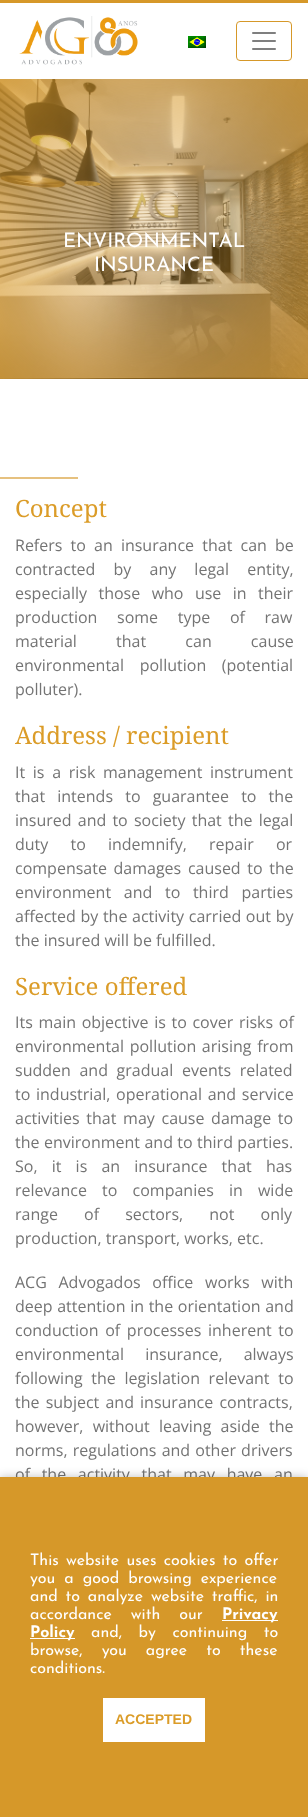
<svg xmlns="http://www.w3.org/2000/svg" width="308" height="1817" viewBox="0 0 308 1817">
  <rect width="100%" height="100%" fill="rgb(255,255,255)"/>
  <rect x="0" y="0" width="308" height="3" fill="rgb(214,152,41)"/>
  <image x="19" y="16" width="119" height="49" href="pic1.png"/>
  <image x="188" y="36" width="18" height="12" href="pic2.png"/>
  <rect x="236.5" y="21.5" width="55" height="39" rx="3.5" fill="none" stroke="rgb(214,152,41)"/>
  <image x="252" y="32" width="24" height="18" href="pic3.png"/>
  <image x="0" y="79" width="308" height="300" href="pic4.png"/>
  <g font-family="Josefin Sans" font-size="20" fill="rgb(255,255,255)">
    <text x="63" y="247">ENVIRONMENTAL</text>
    <text x="94" y="271">INSURANCE</text>
  </g>
  <rect x="0" y="477" width="78" height="2" fill="rgb(230,193,127)"/>
  <text x="15" y="517" font-family="Noto Serif" font-size="24" fill="rgb(219,156,40)">Concept</text>
  <g font-family="Open Sans" font-size="16" fill="rgb(116,116,116)">
    <text>
      <tspan x="15" y="551" word-spacing="4">Refers to an insurance that can be</tspan>
      <tspan x="15" y="575" word-spacing="14">contracted by any legal entity,</tspan>
      <tspan x="15" y="599" word-spacing="7.25">especially those who use in their</tspan>
      <tspan x="15" y="623" word-spacing="15.5">production some type of raw</tspan>
      <tspan x="15" y="647" word-spacing="35">material that can cause</tspan>
      <tspan x="15" y="671" word-spacing="11.5">environmental pollution (potential</tspan>
      <tspan x="15" y="695">polluter).</tspan>
    </text>
  </g>
  <text x="15" y="744" font-family="Noto Serif" font-size="24" fill="rgb(219,156,40)">Address / recipient</text>
  <g font-family="Open Sans" font-size="16" fill="rgb(116,116,116)">
    <text>
      <tspan x="15" y="778" word-spacing="3.5">It is a risk management instrument</tspan>
      <tspan x="15" y="802" word-spacing="8">that intends to guarantee to the</tspan>
      <tspan x="15" y="826" word-spacing="2">insured and to society that the legal</tspan>
      <tspan x="15" y="850" word-spacing="18">duty to indemnify, repair or</tspan>
      <tspan x="15" y="874" word-spacing="2.5">compensate damages caused to the</tspan>
      <tspan x="15" y="898" word-spacing="8.5">environment and to third parties</tspan>
      <tspan x="15" y="922" word-spacing="0.5">affected by the activity carried out by</tspan>
      <tspan x="15" y="946">the insured will be fulfilled.</tspan>
    </text>
  </g>
  <text x="15" y="995" font-family="Noto Serif" font-size="24" fill="rgb(219,156,40)">Service offered</text>
  <g font-family="Open Sans" font-size="16" fill="rgb(116,116,116)">
    <text>
      <tspan x="15" y="1028" word-spacing="1.5">Its main objective is to cover risks of</tspan>
      <tspan x="15" y="1052" word-spacing="1.5">environmental pollution arising from</tspan>
      <tspan x="15" y="1076" word-spacing="4.5">sudden and gradual events related</tspan>
      <tspan x="15" y="1100" word-spacing="1.5">to industrial, operational and service</tspan>
      <tspan x="15" y="1124" word-spacing="2.5">activities that may cause damage to</tspan>
      <tspan x="15" y="1148" word-spacing="0.25">the environment and to third parties.</tspan>
      <tspan x="15" y="1172" word-spacing="10">So, it is an insurance that has</tspan>
      <tspan x="15" y="1196" word-spacing="11">relevance to companies in wide</tspan>
      <tspan x="15" y="1220" word-spacing="22">range of sectors, not only</tspan>
      <tspan x="15" y="1244">production, transport, works, etc.</tspan>
    </text>
    <text>
      <tspan x="15" y="1288" word-spacing="7.5">ACG Advogados office works with</tspan>
      <tspan x="15" y="1312" word-spacing="0.5">deep attention in the orientation and</tspan>
      <tspan x="15" y="1336" word-spacing="2.5">conduction of processes inherent to</tspan>
      <tspan x="15" y="1360" word-spacing="17">environmental insurance, always</tspan>
      <tspan x="15" y="1384" word-spacing="4.5">following the legislation relevant to</tspan>
      <tspan x="15" y="1408" word-spacing="2">the subject and insurance contracts,</tspan>
      <tspan x="15" y="1432" word-spacing="5">however, without leaving aside the</tspan>
      <tspan x="15" y="1456" word-spacing="1">norms, regulations and other drivers</tspan>
      <tspan x="15" y="1480" word-spacing="7.5">of the activity that may have an</tspan>
    </text>
  </g>
  <rect x="0" y="1477" width="308" height="340" fill="rgba(0,0,0,0.25)" filter="blur(5px)"/>
  <rect x="0" y="1477" width="308" height="340" fill="rgb(214,152,41)"/>
  <g font-family="Josefin Sans" font-size="16" fill="rgb(255,255,255)">
    <text>
      <tspan x="30" y="1565" word-spacing="2.25">This website uses cookies to offer</tspan>
      <tspan x="30" y="1583" word-spacing="4">you a good browsing experience</tspan>
      <tspan x="30" y="1601" word-spacing="2.75">and to analyze website traffic, in</tspan>
      <tspan x="30" y="1619" word-spacing="14">accordance with our</tspan>
    </text>
  </g>
  <rect x="222" y="1620" width="56" height="1" fill="rgb(255,255,255)"/>
  <text x="222" y="1619" font-family="Josefin Sans" font-size="16" font-weight="bold" fill="rgb(255,255,255)">Privacy</text>
  <rect x="30" y="1638" width="45" height="1" fill="rgb(255,255,255)"/>
  <text x="30" y="1637" font-family="Josefin Sans" font-size="16" font-weight="bold" fill="rgb(255,255,255)">Policy</text>
  <g font-family="Josefin Sans" font-size="16" fill="rgb(255,255,255)">
    <text x="91" y="1637" word-spacing="11.5">and, by continuing to</text>
    <text>
      <tspan x="30" y="1655" word-spacing="14">browse, you agree to these</tspan>
      <tspan x="30" y="1673">conditions.</tspan>
    </text>
  </g>
  <rect x="103" y="1698" width="102" height="44" fill="rgb(255,255,255)"/>
  <text x="115" y="1724" font-family="Liberation Sans" font-size="14" font-weight="bold" fill="rgb(219,156,40)">ACCEPTED</text>
</svg>
